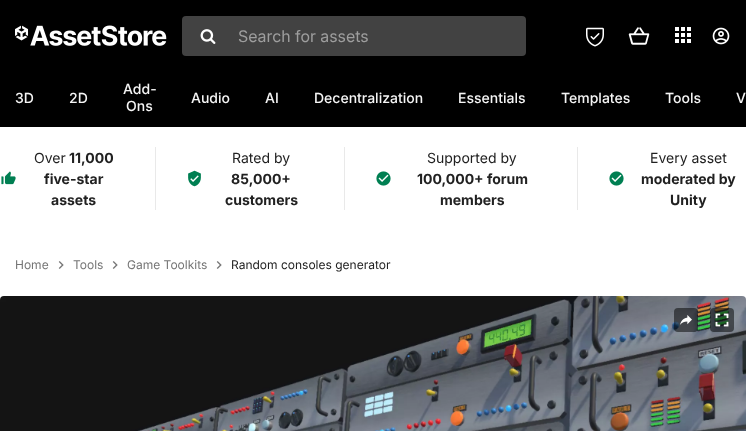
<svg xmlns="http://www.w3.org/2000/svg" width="746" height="431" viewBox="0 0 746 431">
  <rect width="100%" height="100%" fill="rgb(255,255,255)"/>
  <rect x="0" y="0" width="746" height="127" fill="rgb(0,0,0)"/>
  <image x="15" y="25" width="152" height="21" href="pic1.png"/>
  <rect x="182" y="16" width="344" height="40" rx="4" fill="rgb(66,66,66)"/>
  <image x="200" y="29" width="16" height="15" href="pic2.png"/>
  <text x="238" y="42" font-family="'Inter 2'" font-size="16" fill="rgb(158,158,158)">Search for assets</text>
  <image x="586" y="27" width="18" height="20" href="pic3.png"/>
  <image x="628" y="27" width="22" height="18" href="pic4.png"/>
  <image x="675" y="27" width="16" height="16" href="pic5.png"/>
  <image x="712" y="27" width="18" height="18" href="pic6.png"/>
  <g font-family="Inter" font-size="14" font-weight="500" fill="rgb(245,245,245)">
    <text x="15" y="103">3D</text>
    <text x="69" y="103">2D</text>
    <text x="123" y="94">Add-</text>
    <text x="126" y="111">Ons</text>
    <text x="191" y="103">Audio</text>
    <text x="265" y="103">AI</text>
    <text x="314" y="103">Decentralization</text>
    <text x="458" y="103">Essentials</text>
    <text x="561" y="103">Templates</text>
    <text x="665" y="103">Tools</text>
    <text x="736" y="103">V</text>
  </g>
  <image x="1" y="171" width="15" height="14" href="pic7.png"/>
  <text x="34" y="163" font-family="Inter" font-size="14" fill="rgb(33,33,33)">Over</text>
  <g font-family="Inter" font-size="14" font-weight="bold" fill="rgb(33,33,33)">
    <text x="69" y="163">11,000</text>
    <text x="44" y="184">five-star</text>
    <text x="51" y="205">assets</text>
  </g>
  <rect x="344" y="147" width="1" height="63" fill="rgb(233,233,233)"/>
  <rect x="155" y="147" width="1" height="63" fill="rgb(233,233,233)"/>
  <image x="188" y="170" width="13" height="17" href="pic8.png"/>
  <text x="232" y="163" font-family="Inter" font-size="14" fill="rgb(33,33,33)">Rated by</text>
  <g font-family="Inter" font-size="14" font-weight="bold" fill="rgb(33,33,33)">
    <text x="231" y="184">85,000+</text>
    <text x="225" y="205">customers</text>
  </g>
  <rect x="577" y="147" width="1" height="63" fill="rgb(233,233,233)"/>
  <image x="376" y="171" width="15" height="15" href="pic9.png"/>
  <text x="427" y="163" font-family="Inter" font-size="14" fill="rgb(33,33,33)">Supported by</text>
  <g font-family="Inter" font-size="14" font-weight="bold" fill="rgb(33,33,33)">
    <text x="417" y="184">100,000+ forum</text>
    <text x="440" y="205">members</text>
  </g>
  <image x="609" y="171" width="15" height="15" href="pic9.png"/>
  <text x="650" y="163" font-family="Inter" font-size="14" fill="rgb(33,33,33)">Every asset</text>
  <g font-family="Inter" font-size="14" font-weight="bold" fill="rgb(33,33,33)">
    <text x="641" y="184">moderated by</text>
    <text x="670" y="205">Unity</text>
  </g>
  <text x="15" y="269" font-family="Inter" font-size="12" fill="rgb(117,117,117)">Home</text>
  <image x="58" y="261" width="6" height="8" href="pic10.png"/>
  <text x="73" y="269" font-family="Inter" font-size="12" fill="rgb(117,117,117)">Tools</text>
  <image x="112" y="261" width="6" height="8" href="pic10.png"/>
  <text x="127" y="269" font-family="Inter" font-size="12" fill="rgb(117,117,117)">Game Toolkits</text>
  <image x="216" y="261" width="6" height="8" href="pic10.png"/>
  <text x="231" y="269" font-family="Inter" font-size="12" fill="rgb(33,33,33)">Random consoles generator</text>
  <image x="0" y="296" width="746" height="135" href="pic11.png"/>
  <rect x="674" y="308" width="24" height="24" rx="4" fill="rgba(0,0,0,0.5)"/>
  <image x="680" y="315" width="12" height="10" href="pic12.png"/>
  <rect x="710" y="308" width="24" height="24" rx="4" fill="rgba(0,0,0,0.5)"/>
  <image x="715" y="313" width="14" height="14" href="pic13.png"/>
</svg>
